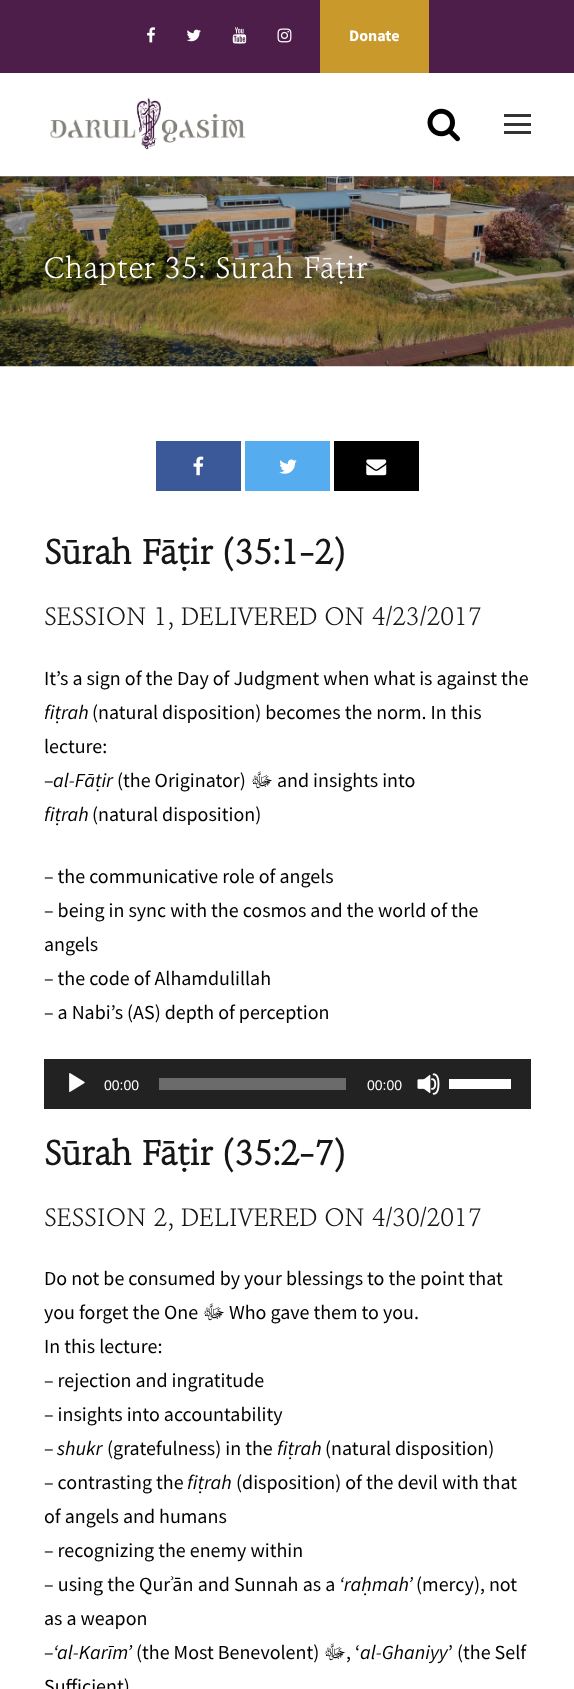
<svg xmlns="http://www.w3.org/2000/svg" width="574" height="1689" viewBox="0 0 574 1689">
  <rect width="100%" height="100%" fill="rgb(255,255,255)"/>
  <rect x="0" y="176" width="574" height="1" fill="rgb(191,191,191)"/>
  <rect x="0" y="0" width="574" height="73" fill="rgb(77,30,74)"/>
  <image x="147" y="27" width="8" height="16" href="pic1.png"/>
  <image x="187" y="29" width="14" height="13" href="pic2.png"/>
  <image x="232" y="27" width="15" height="17" href="pic3.png"/>
  <image x="277" y="28" width="15" height="15" href="pic4.png"/>
  <rect x="320" y="0" width="109" height="73" fill="rgb(202,153,44)"/>
  <text x="349" y="41" font-family="Source Sans Pro" font-size="16" font-weight="bold" fill="rgb(255,255,255)">Donate</text>
  <image x="0" y="176" width="574" height="191" href="pic7.png"/>
  <rect x="0" y="74" width="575" height="104" fill="rgba(0,0,0,0.1)" filter="blur(1px)"/>
  <rect x="0" y="73" width="574" height="103" fill="rgb(255,255,255)"/>
  <image x="50" y="98" width="196" height="52" href="pic5.png"/>
  <image x="427" y="108" width="33" height="34" href="pic6.png"/>
  <rect x="504" y="114" width="27" height="3" fill="rgb(51,51,51)"/>
  <rect x="504" y="123" width="27" height="3" fill="rgb(51,51,51)"/>
  <rect x="504" y="131" width="27" height="3" fill="rgb(51,51,51)"/>
  <text x="44" y="278" font-family="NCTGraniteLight" font-size="32.5" font-weight="300" letter-spacing="0.6" fill="rgb(255,255,255)">Chapter 35: Sūrah Fāṭir</text>
  <rect x="156" y="441" width="85" height="50" fill="rgb(59,89,153)"/>
  <image x="193" y="456" width="11" height="20" href="pic8.png"/>
  <rect x="245" y="441" width="85" height="50" fill="rgb(85,172,238)"/>
  <image x="279" y="459" width="18" height="15" href="pic9.png"/>
  <rect x="334" y="441" width="85" height="50" fill="rgb(0,0,0)"/>
  <image x="366" y="459" width="21" height="17" href="pic10.png"/>
  <text x="44" y="564" font-family="NCTGraniteLight" font-size="37.5" font-weight="bold" fill="rgb(22,22,22)">Sūrah Fāṭir (35:1-2)</text>
  <text x="44" y="625" font-family="NCTGraniteLight" font-size="27.5" font-weight="300" fill="rgb(22,22,22)">SESSION 1, DELIVERED ON 4/23/2017</text>
  <text x="44" y="685" font-family="Source Sans Pro" font-size="20" fill="rgb(0,0,0)">It’s a sign of the Day of Judgment when what is against the</text>
  <text x="44" y="719" font-family="Source Sans Pro" font-size="20" font-style="italic" fill="rgb(0,0,0)">fiṭrah</text>
  <g font-family="Source Sans Pro" font-size="20" fill="rgb(0,0,0)">
    <text x="92" y="719">(natural disposition) becomes the norm. In this</text>
    <text>
      <tspan x="44" y="753">lecture:</tspan>
      <tspan x="44" y="787">–</tspan>
    </text>
  </g>
  <text x="53" y="787" font-family="Source Sans Pro" font-size="20" font-style="italic" fill="rgb(0,0,0)">al-Fāṭir</text>
  <text x="117" y="787" font-family="Source Sans Pro" font-size="20" fill="rgb(0,0,0)">(the Originator)</text>
  <text x="273" y="787" font-family="Lateef" font-size="20" direction="rtl" fill="rgb(0,0,0)">ﷻ</text>
  <text x="277" y="787" font-family="Source Sans Pro" font-size="20" fill="rgb(0,0,0)">and insights into</text>
  <text x="44" y="821" font-family="Source Sans Pro" font-size="20" font-style="italic" fill="rgb(0,0,0)">fiṭrah</text>
  <g font-family="Source Sans Pro" font-size="20" fill="rgb(0,0,0)">
    <text x="92" y="821">(natural disposition)</text>
    <text>
      <tspan x="44" y="883">– the communicative role of angels</tspan>
      <tspan x="44" y="917">– being in sync with the cosmos and the world of the</tspan>
      <tspan x="44" y="951">angels</tspan>
      <tspan x="44" y="985">– the code of Alhamdulillah</tspan>
      <tspan x="44" y="1019">– a Nabi’s (AS) depth of perception</tspan>
    </text>
  </g>
  <rect x="44" y="1059" width="487" height="50" fill="rgb(34,34,34)"/>
  <image x="69" y="1073" width="16" height="19" href="pic11.png"/>
  <text x="104" y="1090" font-family="Liberation Sans" font-size="14" fill="rgb(255,255,255)">00:00</text>
  <rect x="159" y="1078" width="187" height="12" fill="rgb(107,107,107)"/>
  <text x="367" y="1090" font-family="Liberation Sans" font-size="14" fill="rgb(255,255,255)">00:00</text>
  <image x="417" y="1073" width="23" height="22" href="pic12.png"/>
  <rect x="449" y="1079" width="62" height="10" fill="rgb(255,255,255)"/>
  <text x="44" y="1165" font-family="NCTGraniteLight" font-size="37.5" font-weight="bold" fill="rgb(22,22,22)">Sūrah Fāṭir (35:2-7)</text>
  <text x="44" y="1226" font-family="NCTGraniteLight" font-size="27.5" font-weight="300" fill="rgb(22,22,22)">SESSION 2, DELIVERED ON 4/30/2017</text>
  <g font-family="Source Sans Pro" font-size="20" fill="rgb(0,0,0)">
    <text>
      <tspan x="44" y="1285">Do not be consumed by your blessings to the point that</tspan>
      <tspan x="44" y="1319">you forget the One</tspan>
    </text>
  </g>
  <text x="225" y="1319" font-family="Lateef" font-size="20" direction="rtl" fill="rgb(0,0,0)">ﷻ</text>
  <g font-family="Source Sans Pro" font-size="20" fill="rgb(0,0,0)">
    <text x="229" y="1319">Who gave them to you.</text>
    <text>
      <tspan x="44" y="1353">In this lecture:</tspan>
      <tspan x="44" y="1387">– rejection and ingratitude</tspan>
      <tspan x="44" y="1421">– insights into accountability</tspan>
      <tspan x="44" y="1455">–</tspan>
    </text>
  </g>
  <text x="57" y="1455" font-family="Source Sans Pro" font-size="20" font-style="italic" fill="rgb(0,0,0)">shukr</text>
  <text x="107" y="1455" font-family="Source Sans Pro" font-size="20" fill="rgb(0,0,0)">(gratefulness) in the</text>
  <text x="277" y="1455" font-family="Source Sans Pro" font-size="20" font-style="italic" fill="rgb(0,0,0)">fiṭrah</text>
  <g font-family="Source Sans Pro" font-size="20" fill="rgb(0,0,0)">
    <text x="325" y="1455">(natural disposition)</text>
    <text x="44" y="1489">– contrasting the</text>
  </g>
  <text x="187" y="1489" font-family="Source Sans Pro" font-size="20" font-style="italic" fill="rgb(0,0,0)">fiṭrah</text>
  <g font-family="Source Sans Pro" font-size="20" fill="rgb(0,0,0)">
    <text x="236" y="1489">(disposition) of the devil with that</text>
    <text>
      <tspan x="44" y="1523">of angels and humans</tspan>
      <tspan x="44" y="1557">– recognizing the enemy within</tspan>
      <tspan x="44" y="1591" word-spacing="0.25">– using the Qurʾān and Sunnah as a</tspan>
    </text>
  </g>
  <text x="339" y="1591" font-family="Source Sans Pro" font-size="20" font-style="italic" fill="rgb(0,0,0)">‘raḥmah’</text>
  <g font-family="Source Sans Pro" font-size="20" fill="rgb(0,0,0)">
    <text x="416" y="1591">(mercy), not</text>
    <text>
      <tspan x="44" y="1625">as a weapon</tspan>
      <tspan x="44" y="1659">–</tspan>
    </text>
  </g>
  <text x="53" y="1659" font-family="Source Sans Pro" font-size="20" font-style="italic" fill="rgb(0,0,0)">‘al-Karīm’</text>
  <text x="136" y="1659" font-family="Source Sans Pro" font-size="20" fill="rgb(0,0,0)">(the Most Benevolent)</text>
  <text x="346" y="1659" font-family="Lateef" font-size="20" direction="rtl" fill="rgb(0,0,0)">ﷻ</text>
  <text x="346" y="1659" font-family="Source Sans Pro" font-size="20" fill="rgb(0,0,0)">, ‘</text>
  <text x="360" y="1659" font-family="Source Sans Pro" font-size="20" font-style="italic" fill="rgb(0,0,0)">al-Ghaniyy</text>
  <g font-family="Source Sans Pro" font-size="20" fill="rgb(0,0,0)">
    <text x="448" y="1659">’ (the Self</text>
    <text x="44" y="1693">Sufficient)</text>
  </g>
</svg>
